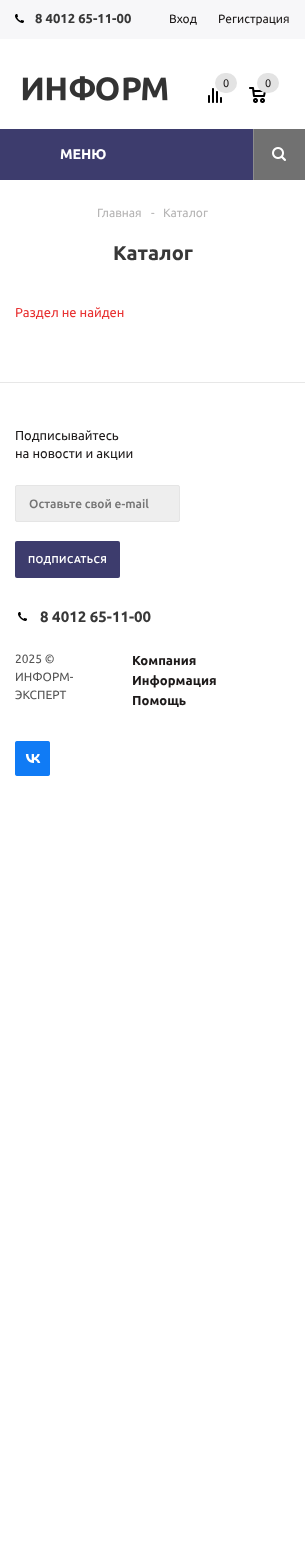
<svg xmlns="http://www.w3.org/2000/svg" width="305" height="1549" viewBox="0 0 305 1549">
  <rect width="100%" height="100%" fill="rgb(255,255,255)"/>
  <rect x="0" y="0" width="305" height="39" fill="rgb(247,247,249)"/>
  <image x="15" y="14" width="9" height="9" href="pic1.png"/>
  <text x="35" y="23" font-family="Ubuntu" font-size="13" font-weight="bold" fill="rgb(56,56,56)">8 4012 65-11-00</text>
  <g font-family="Ubuntu" font-size="12" fill="rgb(29,26,26)">
    <text x="169" y="23">Вход</text>
    <text x="218" y="23">Регистрация</text>
  </g>
  <image x="22" y="76" width="146" height="25" href="pic2.png"/>
  <image x="208" y="88" width="14" height="15" href="pic3.png"/>
  <rect x="215" y="73" width="22" height="20" rx="10" fill="rgb(227,227,227)"/>
  <text x="223" y="87" font-family="Ubuntu" font-size="11" fill="rgb(29,26,26)">0</text>
  <image x="249" y="87" width="17" height="16" href="pic4.png"/>
  <rect x="257" y="73" width="22" height="20" rx="10" fill="rgb(227,227,227)"/>
  <text x="265" y="87" font-family="Ubuntu" font-size="11" fill="rgb(29,26,26)">0</text>
  <rect x="0" y="129" width="253" height="51" fill="rgb(61,60,109)"/>
  <text x="60" y="159" font-family="Ubuntu" font-size="14" font-weight="bold" fill="rgb(255,255,255)">МЕНЮ</text>
  <rect x="254" y="129" width="51" height="51" fill="rgb(113,113,113)"/>
  <rect x="253" y="129" width="1" height="51" fill="rgb(141,141,141)"/>
  <image x="272" y="147" width="14" height="14" href="pic5.png"/>
  <g font-family="Ubuntu" font-size="12" fill="rgb(182,181,181)">
    <text x="97" y="217">Главная</text>
    <text x="151" y="217">-</text>
    <text x="163" y="217">Каталог</text>
  </g>
  <text x="113" y="260" font-family="Ubuntu" font-size="20" font-weight="bold" fill="rgb(56,56,56)">Каталог</text>
  <text x="15" y="317" font-family="Ubuntu" font-size="13" fill="rgb(232,51,51)">Раздел не найден</text>
  <rect x="0" y="382" width="305" height="1" fill="rgb(231,231,231)"/>
  <g font-family="Ubuntu" font-size="13" fill="rgb(29,26,26)">
    <text>
      <tspan x="15" y="440">Подписывайтесь</tspan>
      <tspan x="15" y="458">на новости и акции</tspan>
    </text>
  </g>
  <rect x="15.5" y="485.5" width="164" height="36" rx="1.5" fill="rgb(238,238,238)" stroke="rgb(229,229,229)"/>
  <text x="29" y="508" font-family="Ubuntu" font-size="12" font-weight="500" fill="rgb(117,117,117)">Оставьте свой e-mail</text>
  <rect x="15" y="541" width="105" height="37" rx="2" fill="rgb(61,60,109)"/>
  <text x="28" y="563" font-family="Ubuntu" font-size="10" font-weight="500" letter-spacing="0.4" fill="rgb(255,255,255)">ПОДПИСАТЬСЯ</text>
  <image x="18" y="612" width="9" height="9" href="pic6.png"/>
  <text x="40" y="622" font-family="Ubuntu" font-size="15" font-weight="bold" fill="rgb(56,56,56)">8 4012 65-11-00</text>
  <g font-family="Ubuntu" font-size="12" fill="rgb(84,84,84)">
    <text>
      <tspan x="15" y="663">2025 ©</tspan>
      <tspan x="15" y="681">ИНФОРМ-</tspan>
      <tspan x="15" y="699">ЭКСПЕРТ</tspan>
    </text>
  </g>
  <g font-family="Ubuntu" font-size="13" font-weight="bold" fill="rgb(29,26,26)">
    <text>
      <tspan x="132" y="665">Компания</tspan>
      <tspan x="132" y="685">Информация</tspan>
      <tspan x="132" y="705">Помощь</tspan>
    </text>
  </g>
  <image x="15" y="741" width="35" height="35" href="pic7.png"/>
</svg>
